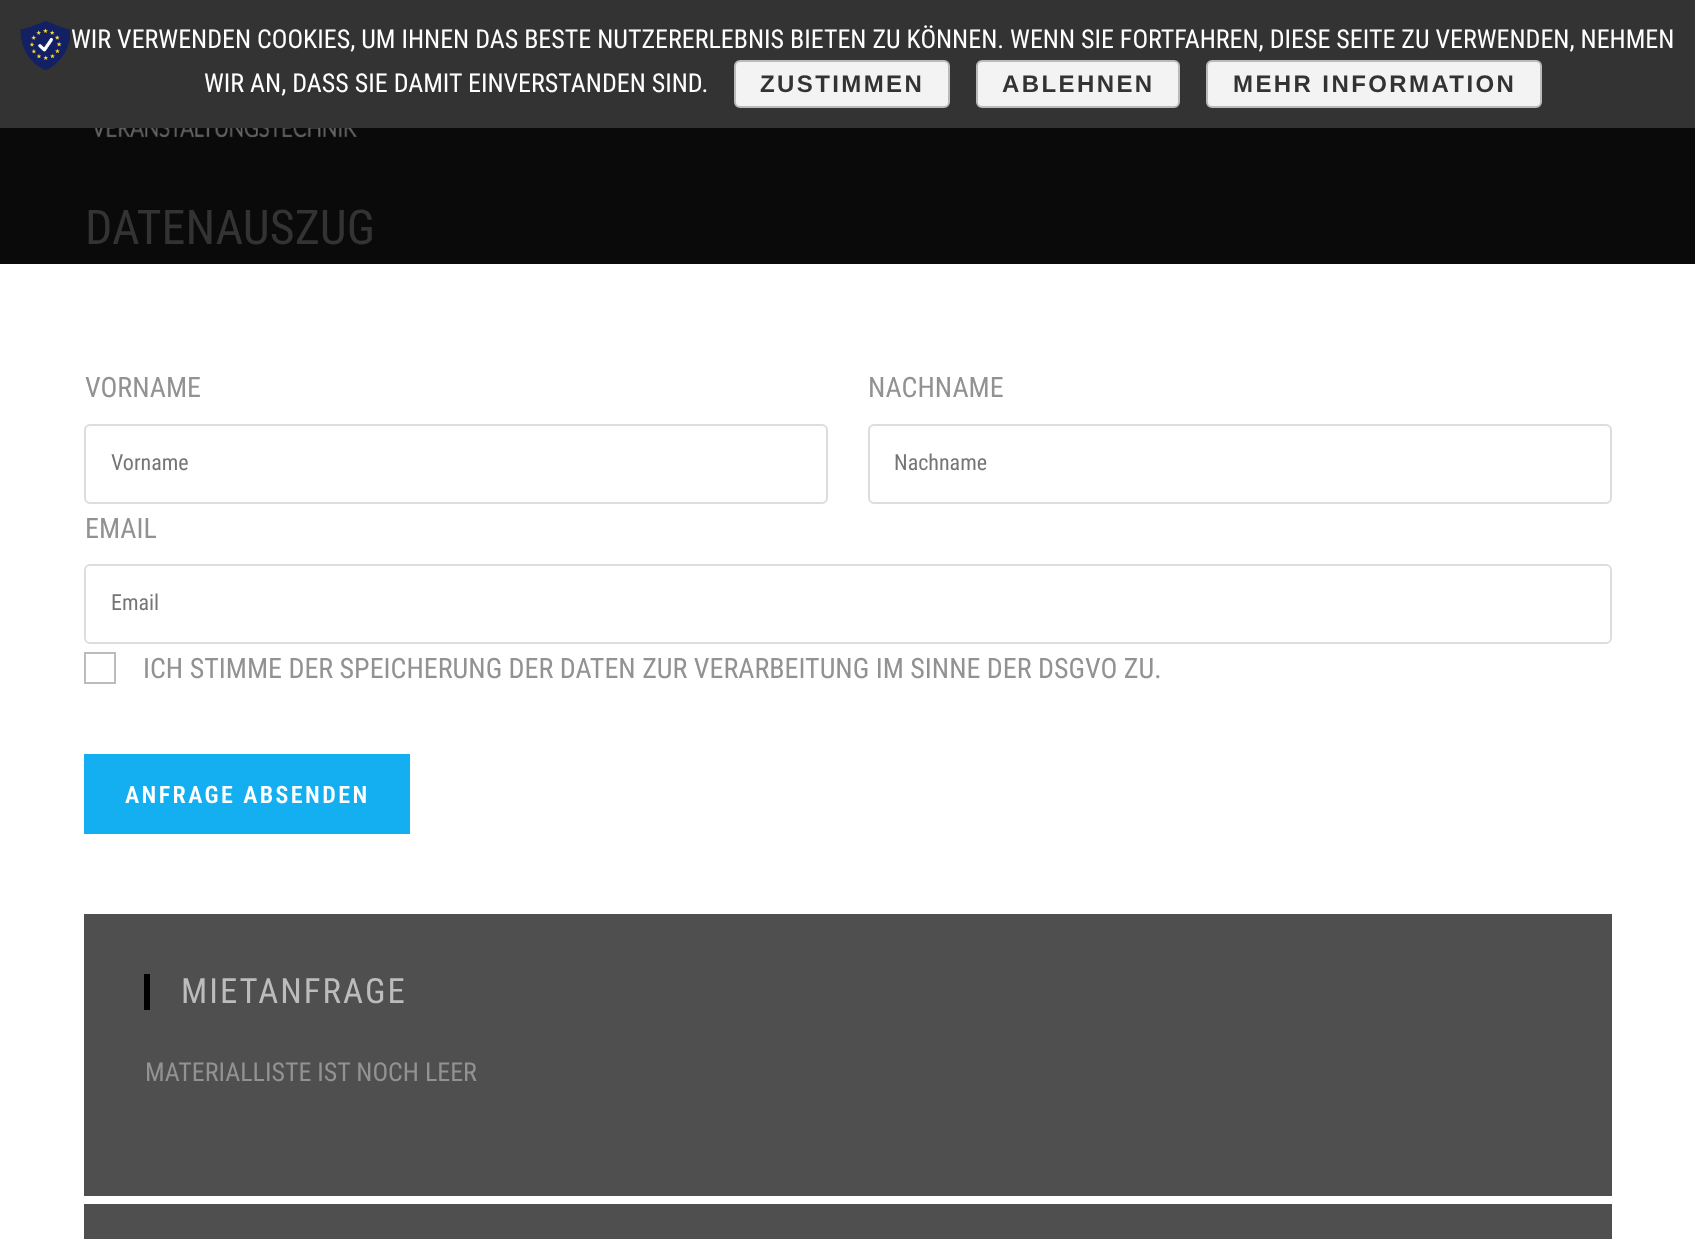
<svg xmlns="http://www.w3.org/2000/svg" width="1695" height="1239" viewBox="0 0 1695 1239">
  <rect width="100%" height="100%" fill="rgb(255,255,255)"/>
  <rect x="0" y="0" width="1695" height="128" fill="rgb(51,51,51)"/>
  <image x="20" y="20" width="50" height="50" href="pic1.png"/>
  <g font-family="Roboto Condensed" font-size="26" fill="rgb(255,255,255)">
    <text x="71" y="48">WIR VERWENDEN COOKIES, UM IHNEN DAS BESTE NUTZERERLEBNIS BIETEN ZU KÖNNEN. WENN SIE FORTFAHREN, DIESE SEITE ZU VERWENDEN, NEHMEN</text>
    <text x="204" y="92">WIR AN, DASS SIE DAMIT EINVERSTANDEN SIND.</text>
  </g>
  <rect x="735" y="61" width="214" height="46" rx="5" fill="rgb(243,243,243)" stroke="rgb(187,187,187)" stroke-width="2"/>
  <text x="760" y="92" font-family="Liberation Sans" font-size="24" font-weight="bold" letter-spacing="2.4" fill="rgb(51,51,51)">ZUSTIMMEN</text>
  <rect x="977" y="61" width="202" height="46" rx="5" fill="rgb(243,243,243)" stroke="rgb(187,187,187)" stroke-width="2"/>
  <text x="1002" y="92" font-family="Liberation Sans" font-size="24" font-weight="bold" letter-spacing="2.4" fill="rgb(51,51,51)">ABLEHNEN</text>
  <rect x="1207" y="61" width="334" height="46" rx="5" fill="rgb(243,243,243)" stroke="rgb(187,187,187)" stroke-width="2"/>
  <text x="1233" y="92" font-family="Liberation Sans" font-size="24" font-weight="bold" letter-spacing="2.4" fill="rgb(51,51,51)">MEHR INFORMATION</text>
  <rect x="0" y="128" width="1695" height="136" fill="rgb(10,10,10)"/>
  <image x="94" y="128" width="263" height="10" href="pic2.png"/>
  <text x="85" y="244" font-family="Roboto Condensed" font-size="48" fill="rgb(51,51,51)">DATENAUSZUG</text>
  <text x="85" y="397" font-family="Roboto Condensed" font-size="28" fill="rgb(146,146,146)">VORNAME</text>
  <rect x="85" y="425" width="742" height="78" rx="5" fill="none" stroke="rgb(221,221,221)" stroke-width="2"/>
  <text x="111" y="470" font-family="Roboto Condensed" font-size="22" fill="rgb(117,117,117)">Vorname</text>
  <text x="868" y="397" font-family="Roboto Condensed" font-size="28" fill="rgb(146,146,146)">NACHNAME</text>
  <rect x="869" y="425" width="742" height="78" rx="5" fill="none" stroke="rgb(221,221,221)" stroke-width="2"/>
  <text x="894" y="470" font-family="Roboto Condensed" font-size="22" fill="rgb(117,117,117)">Nachname</text>
  <text x="85" y="538" font-family="Roboto Condensed" font-size="28" fill="rgb(146,146,146)">EMAIL</text>
  <rect x="85" y="565" width="1526" height="78" rx="5" fill="none" stroke="rgb(221,221,221)" stroke-width="2"/>
  <text x="111" y="610" font-family="Roboto Condensed" font-size="22" fill="rgb(117,117,117)">Email</text>
  <rect x="85" y="653" width="30" height="30" fill="none" stroke="rgb(187,187,187)" stroke-width="2"/>
  <text x="143" y="678" font-family="Roboto Condensed" font-size="28" fill="rgb(146,146,146)">ICH STIMME DER SPEICHERUNG DER DATEN ZUR VERARBEITUNG IM SINNE DER DSGVO ZU.</text>
  <rect x="84" y="754" width="326" height="80" fill="rgb(19,175,240)"/>
  <text x="125" y="803" font-family="Roboto Condensed" font-size="24" font-weight="600" letter-spacing="2.4" fill="rgb(255,255,255)">ANFRAGE ABSENDEN</text>
  <rect x="84" y="914" width="1528" height="282" fill="rgb(79,79,79)"/>
  <rect x="144" y="974" width="6" height="36" fill="rgb(0,0,0)"/>
  <text x="181" y="1003" font-family="Roboto Condensed" font-size="34.75" letter-spacing="2" fill="rgb(188,188,188)">MIETANFRAGE</text>
  <text x="145" y="1081" font-family="Roboto Condensed" font-size="26" fill="rgb(146,146,146)">MATERIALLISTE IST NOCH LEER</text>
  <rect x="84" y="1204" width="1528" height="35" fill="rgb(79,79,79)"/>
</svg>
